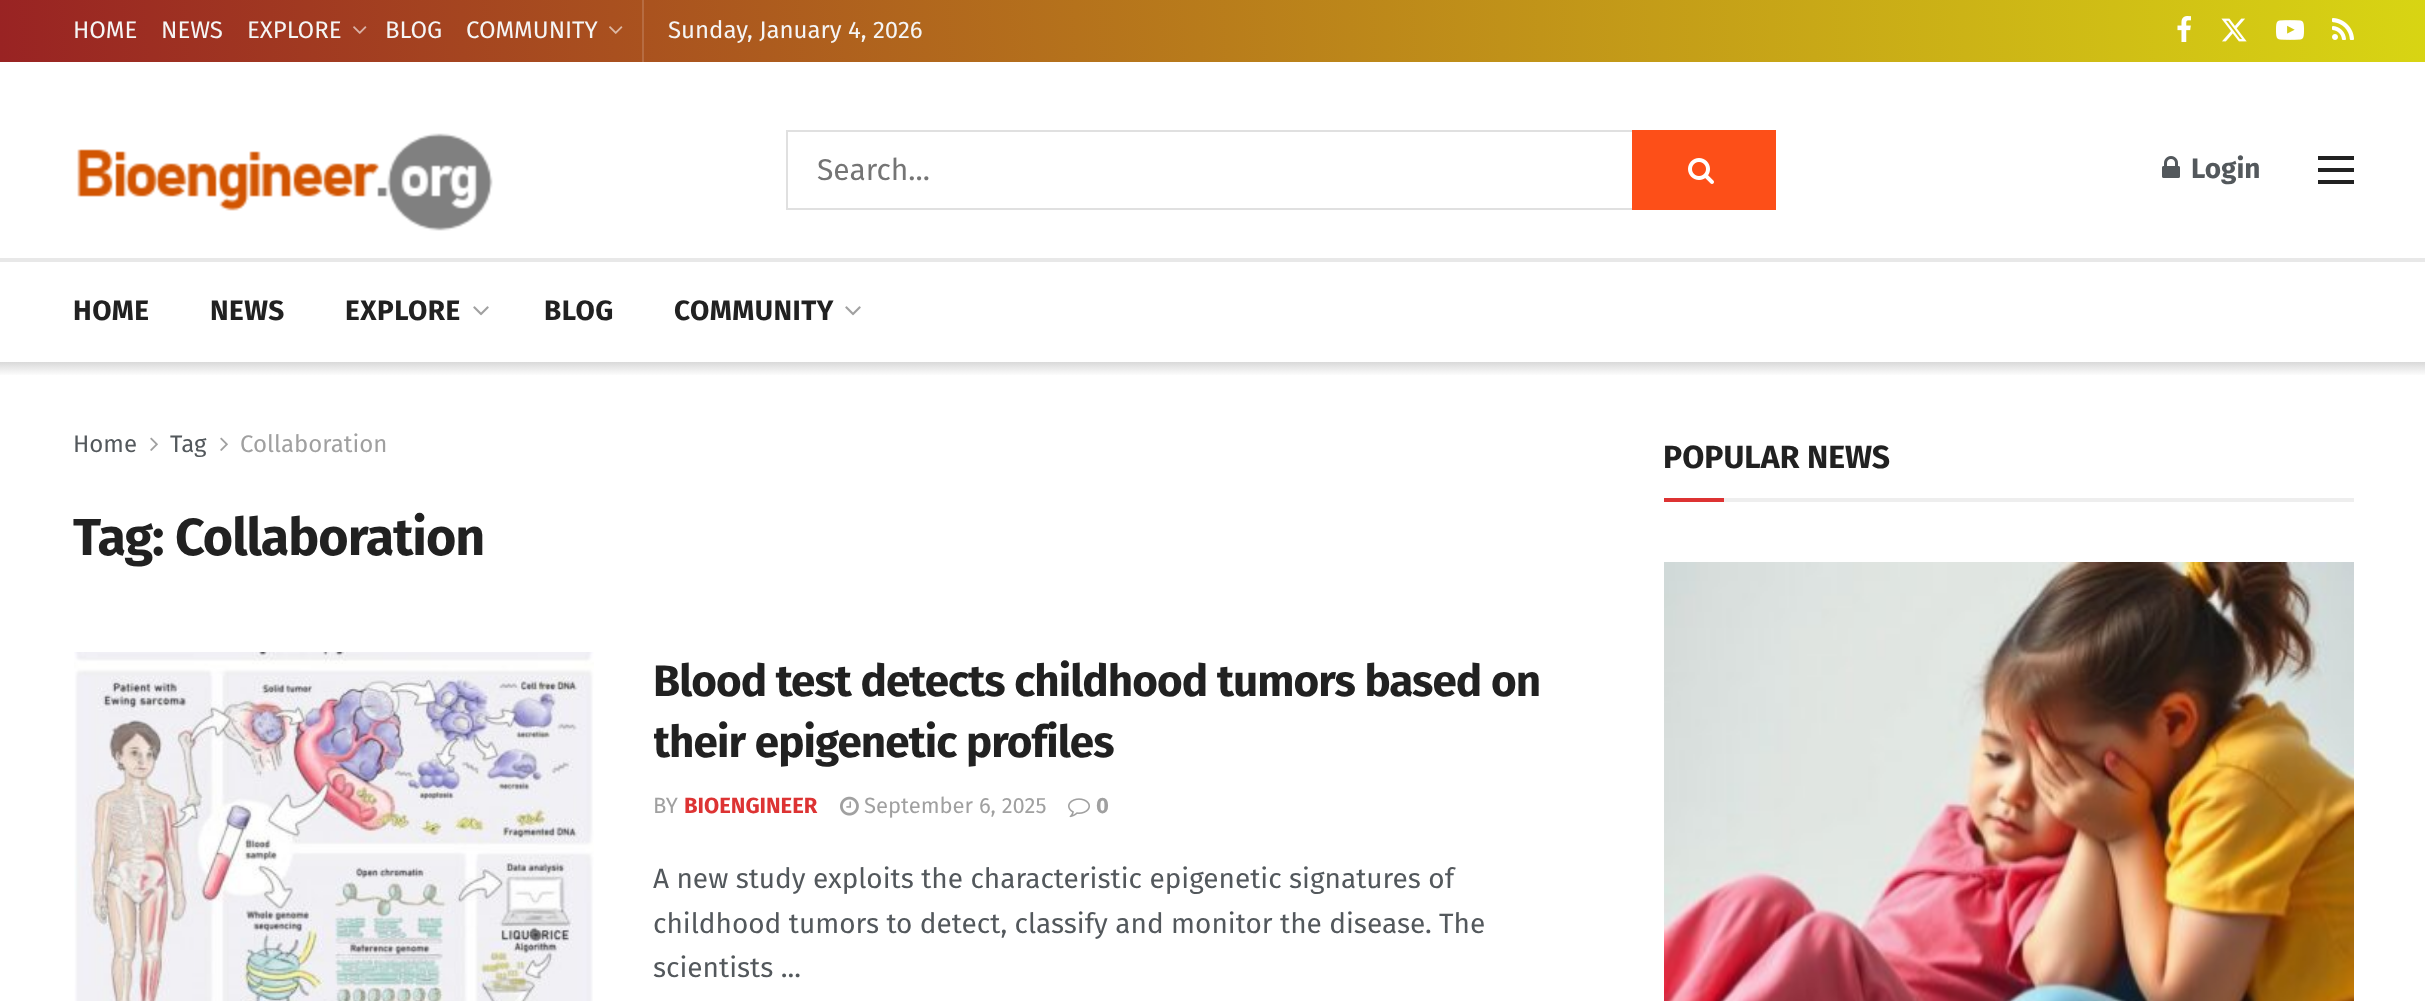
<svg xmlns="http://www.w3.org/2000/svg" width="2425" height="1001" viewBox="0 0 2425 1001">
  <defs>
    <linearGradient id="g1" gradientUnits="userSpaceOnUse" x1="1.7" y1="94" x2="2424" y2="-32"><stop offset="0" stop-color="rgb(153,35,35)"/><stop offset="1" stop-color="rgb(216,213,19)"/></linearGradient>
    <linearGradient id="g2" gradientUnits="userSpaceOnUse" x1="1213" y1="362" x2="1213" y2="376"><stop offset="0" stop-color="rgb(217,217,217)"/><stop offset="1" stop-color="rgb(255,255,255)"/></linearGradient>
    <clipPath id="clip1"><rect x="654" y="652" width="920" height="340"/></clipPath>
  </defs>
  <rect width="100%" height="100%" fill="rgb(255,255,255)"/>
  <rect x="0" y="0" width="2425" height="62" fill="url(#g1)"/>
  <rect x="642" y="0" width="2" height="62" fill="rgb(183,108,65)"/>
  <g font-family="Fira Sans" font-size="24" fill="rgb(245,245,245)">
    <text x="73" y="38">HOME</text>
    <text x="161" y="38">NEWS</text>
    <text x="247" y="38">EXPLORE</text>
  </g>
  <image x="353" y="26" width="14" height="8" href="pic1.png"/>
  <g font-family="Fira Sans" font-size="24" fill="rgb(245,245,245)">
    <text x="385" y="38">BLOG</text>
    <text x="466" y="38">COMMUNITY</text>
  </g>
  <image x="609" y="26" width="14" height="8" href="pic2.png"/>
  <text x="668" y="38" font-family="Fira Sans" font-size="24" fill="rgb(245,245,245)">Sunday, January 4, 2026</text>
  <image x="2177" y="16" width="14" height="26" href="pic3.png"/>
  <image x="2221" y="18" width="26" height="24" href="pic4.png"/>
  <image x="2276" y="20" width="28" height="20" href="pic5.png"/>
  <image x="2332" y="18" width="22" height="22" href="pic6.png"/>
  <rect x="0" y="258" width="2425" height="4" fill="rgb(232,232,232)"/>
  <image x="77" y="133" width="416" height="98" href="pic7.png"/>
  <rect x="787" y="131" width="988" height="78" fill="none" stroke="rgb(224,224,224)" stroke-width="2"/>
  <text x="817" y="180" font-family="Fira Sans" font-size="30" fill="rgb(117,117,117)">Search...</text>
  <rect x="1632" y="130" width="144" height="80" fill="rgb(253,79,24)"/>
  <image x="1688" y="158" width="26" height="26" href="pic8.png"/>
  <image x="2162" y="156" width="18" height="22" href="pic9.png"/>
  <text x="2191" y="178" font-family="Fira Sans" font-size="28" font-weight="bold" fill="rgb(83,88,92)">Login</text>
  <rect x="2318" y="156" width="36" height="4" fill="rgb(33,33,33)"/>
  <rect x="2318" y="168" width="36" height="4" fill="rgb(33,33,33)"/>
  <rect x="2318" y="180" width="36" height="4" fill="rgb(33,33,33)"/>
  <g font-family="Fira Sans" font-size="28" font-weight="bold" letter-spacing="0.5" fill="rgb(33,33,33)">
    <text x="73" y="320">HOME</text>
    <text x="210" y="320">NEWS</text>
    <text x="345" y="320">EXPLORE</text>
  </g>
  <image x="473" y="306" width="16" height="10" href="pic10.png"/>
  <g font-family="Fira Sans" font-size="28" font-weight="bold" letter-spacing="0.5" fill="rgb(33,33,33)">
    <text x="544" y="320">BLOG</text>
    <text x="674" y="320">COMMUNITY</text>
  </g>
  <image x="845" y="306" width="16" height="10" href="pic10.png"/>
  <rect x="0" y="362" width="2425" height="13" fill="url(#g2)"/>
  <text x="73" y="452" font-family="Fira Sans" font-size="24" fill="rgb(83,88,92)">Home</text>
  <image x="150" y="437" width="8" height="14" href="pic11.png"/>
  <text x="170" y="452" font-family="Fira Sans" font-size="24" fill="rgb(83,88,92)">Tag</text>
  <image x="220" y="437" width="8" height="14" href="pic11.png"/>
  <text x="240" y="452" font-family="Fira Sans" font-size="24" fill="rgb(160,160,160)">Collaboration</text>
  <text x="73" y="555" font-family="Fira Sans" font-size="52" font-weight="bold" letter-spacing="-1" fill="rgb(33,33,33)">Tag: Collaboration</text>
  <image x="74" y="652" width="520" height="349" href="pic12.png"/>
  <text x="653" y="696" font-family="Fira Sans" font-size="44" font-weight="bold" letter-spacing="-0.9" fill="rgb(33,33,33)">Blood test detects childhood tumors based on</text>
  <g clip-path="url(#clip1)">
    <text x="653" y="757" font-family="Fira Sans" font-size="44" font-weight="bold" letter-spacing="-0.9" fill="rgb(33,33,33)">their epigenetic profiles</text>
  </g>
  <text x="653" y="813" font-family="Fira Sans" font-size="22" fill="rgb(160,160,160)">BY</text>
  <text x="684" y="813" font-family="Fira Sans" font-size="22" font-weight="bold" fill="rgb(221,51,51)">BIOENGINEER</text>
  <image x="840" y="796" width="19" height="20" href="pic13.png"/>
  <text x="864" y="813" font-family="Fira Sans" font-size="22" fill="rgb(160,160,160)">September 6, 2025</text>
  <image x="1068" y="798" width="22" height="20" href="pic14.png"/>
  <text x="1096" y="813" font-family="Fira Sans" font-size="22" font-weight="bold" fill="rgb(160,160,160)">0</text>
  <g font-family="Fira Sans" font-size="28" fill="rgb(83,88,92)">
    <text>
      <tspan x="653" y="888">A new study exploits the characteristic epigenetic signatures of</tspan>
      <tspan x="653" y="933">childhood tumors to detect, classify and monitor the disease. The</tspan>
      <tspan x="653" y="977">scientists ...</tspan>
    </text>
  </g>
  <rect x="1724" y="498" width="630" height="4" fill="rgb(238,238,238)"/>
  <text x="1663" y="468" font-family="Fira Sans" font-size="32" font-weight="bold" fill="rgb(33,33,33)">POPULAR NEWS</text>
  <rect x="1664" y="498" width="60" height="4" fill="rgb(221,51,51)"/>
  <image x="1664" y="562" width="690" height="439" href="pic15.png"/>
</svg>
